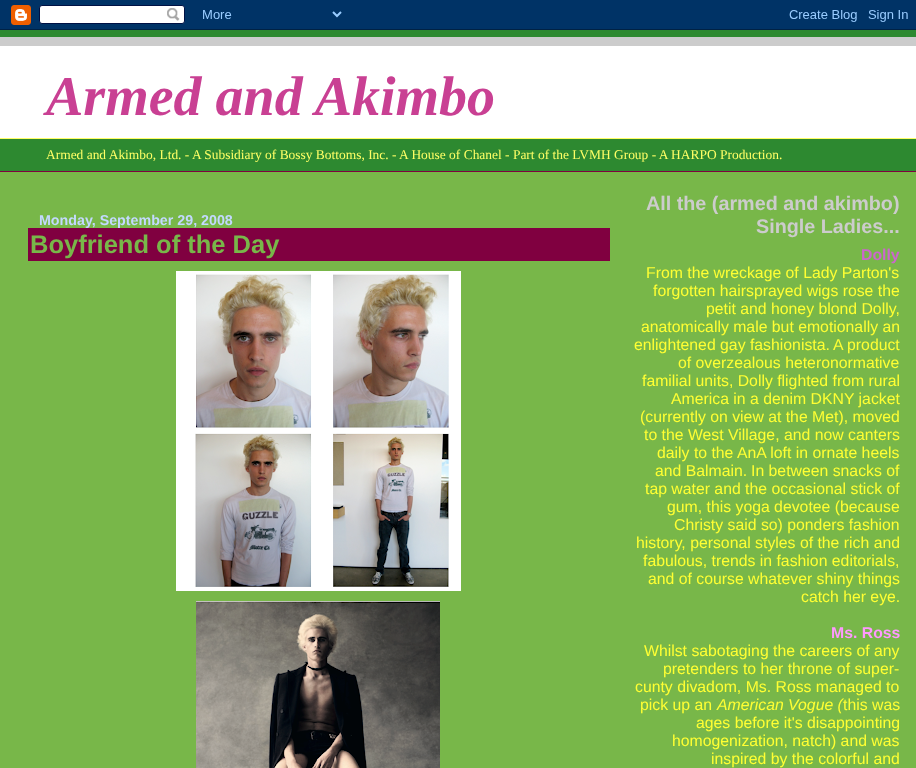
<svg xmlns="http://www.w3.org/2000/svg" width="916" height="768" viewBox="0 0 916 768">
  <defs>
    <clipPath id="clip1"><rect x="630" y="192" width="270" height="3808"/></clipPath>
  </defs>
  <rect width="100%" height="100%" fill="rgb(120,183,73)"/>
  <image x="0" y="0" width="916" height="30" href="pic1.png"/>
  <rect x="0" y="30" width="916" height="141" fill="rgb(45,137,48)"/>
  <rect x="0" y="171" width="916" height="1" fill="rgb(128,0,64)"/>
  <rect x="0" y="46" width="916" height="92" fill="rgb(255,255,255)"/>
  <rect x="0" y="37" width="916" height="9" fill="rgb(204,204,204)"/>
  <rect x="0" y="138" width="916" height="1" fill="rgb(255,255,102)"/>
  <text x="46" y="115" font-family="Liberation Serif" font-size="56" font-weight="bold" font-style="italic" fill="rgb(201,64,147)">Armed and Akimbo</text>
  <text x="46" y="159" font-family="Liberation Serif" font-size="13.45" fill="rgb(255,255,102)">Armed and Akimbo, Ltd. - A Subsidiary of Bossy Bottoms, Inc. - A House of Chanel - Part of the LVMH Group - A HARPO Production.</text>
  <text x="39" y="225" font-family="Liberation Sans" font-size="14.25" font-weight="bold" fill="rgb(195,217,255)">Monday, September 29, 2008</text>
  <rect x="28" y="228" width="582" height="33" fill="rgb(128,0,64)"/>
  <text x="30" y="253" font-family="Liberation Sans" font-size="25.5" font-weight="bold" fill="rgb(120,183,73)">Boyfriend of the Day</text>
  <image x="176" y="271" width="285" height="320" href="pic2.png"/>
  <image x="196" y="601" width="244" height="167" href="pic3.png"/>
  <g font-family="Liberation Sans" font-size="19.75" font-weight="bold" fill="rgb(204,204,204)">
    <text x="646" y="210">All the (armed and akimbo)</text>
    <text x="756" y="233">Single Ladies...</text>
  </g>
  <text x="861" y="260" font-family="Liberation Sans" font-size="15.8" font-weight="bold" fill="rgb(204,102,204)">Dolly</text>
  <g font-family="Liberation Sans" font-size="15.8" fill="rgb(255,255,51)">
    <text x="646" y="278">From the wreckage of Lady Parton's</text>
    <text x="653" y="296">forgotten hairsprayed wigs rose the</text>
    <text x="706" y="314">petit and honey blond Dolly,</text>
    <text x="641" y="332">anatomically male but emotionally an</text>
    <text x="634" y="350">enlightened gay fashionista.</text>
    <text x="833" y="350">A product</text>
    <text x="678" y="368">of overzealous heteronormative</text>
    <text x="642" y="386">familial units, Dolly flighted from rural</text>
    <text x="671" y="404">America in a denim DKNY jacket</text>
    <text x="640" y="422">(currently on view at the Met), moved</text>
    <text x="644" y="440">to the West Village, and now canters</text>
    <text x="657" y="458">daily to the AnA loft in ornate heels</text>
    <text x="655" y="476">and Balmain.</text>
  </g>
  <g clip-path="url(#clip1)">
    <g font-family="Liberation Sans" font-size="15.8" fill="rgb(255,255,51)">
      <text x="751" y="476">In between snacks of</text>
      <text x="645" y="494">tap water and the occasional stick of</text>
    </g>
  </g>
  <g font-family="Liberation Sans" font-size="15.8" fill="rgb(255,255,51)">
    <text x="667" y="512">gum, this yoga devotee (because</text>
    <text x="674" y="530">Christy said so) ponders fashion</text>
    <text x="636" y="548">history, personal styles of the rich and</text>
    <text x="643" y="566">fabulous, trends in fashion editorials,</text>
    <text x="648" y="584">and of course whatever shiny things</text>
    <text x="801" y="602">catch her eye.</text>
  </g>
  <text x="831" y="638" font-family="Liberation Sans" font-size="15.8" font-weight="bold" fill="rgb(255,153,255)">Ms. Ross</text>
  <g font-family="Liberation Sans" font-size="15.8" fill="rgb(255,255,51)">
    <text x="644" y="656">Whilst sabotaging the careers of any</text>
    <text x="663" y="674">pretenders to her throne of super-</text>
    <text x="635" y="692">cunty divadom, Ms. Ross managed to</text>
    <text x="640" y="710">pick up an</text>
  </g>
  <text x="717" y="710" font-family="Liberation Sans" font-size="15.8" font-style="italic" fill="rgb(255,255,51)">American Vogue (</text>
  <g font-family="Liberation Sans" font-size="15.8" fill="rgb(255,255,51)">
    <text x="843" y="710">this was</text>
    <text x="696" y="728">ages before it's disappointing</text>
    <text x="672" y="746">homogenization, natch) and was</text>
    <text x="711" y="764">inspired by the colorful and</text>
  </g>
</svg>
